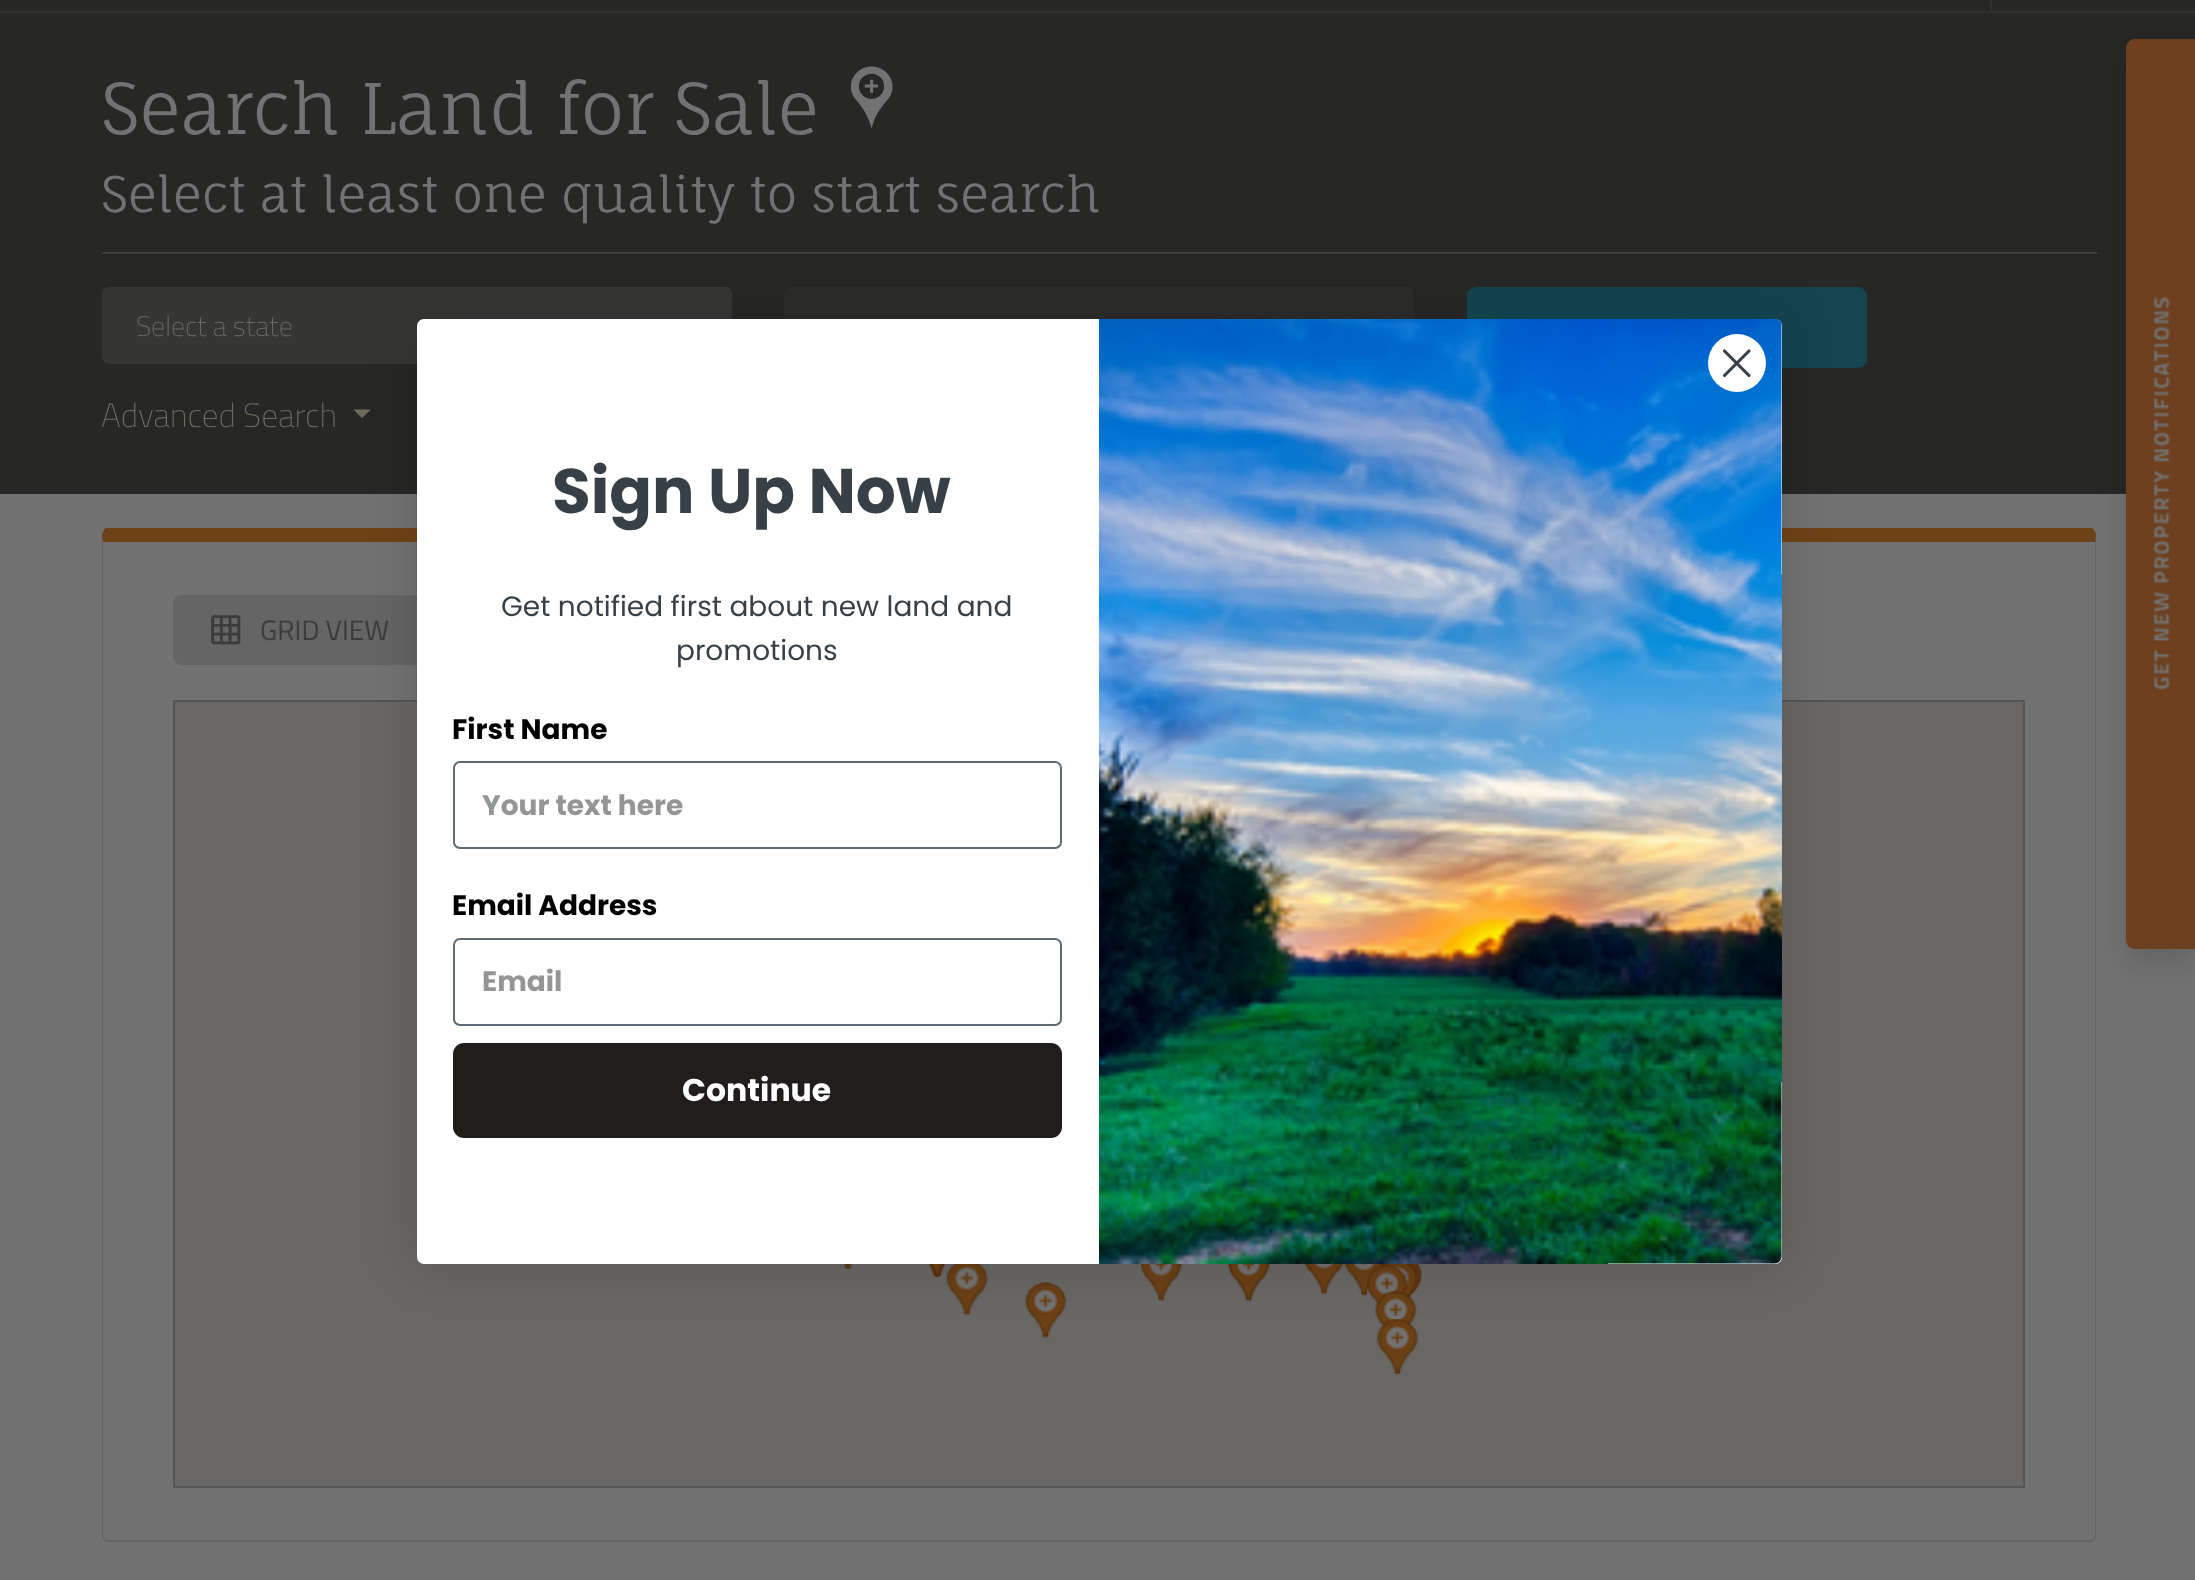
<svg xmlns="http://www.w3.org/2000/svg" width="2195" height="1580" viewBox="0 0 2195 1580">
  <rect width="100%" height="100%" fill="rgb(114,114,114)"/>
  <rect x="0" y="13" width="2195" height="481" fill="rgb(39,39,38)"/>
  <rect x="0" y="11" width="2195" height="2" fill="rgb(49,49,48)"/>
  <rect x="102" y="252" width="1995" height="2" fill="rgb(60,60,59)"/>
  <path d="M102 534C103 532 104 529 106 528H2092C2094 529 2095 532 2096 534L2095 542H103Z" fill="rgb(110,66,23)"/>
  <path d="M2096 534V1535C2096 1537 2095 1538 2094 1540L2093 1539C2094 1538 2095 1536 2095 1535V542Z" fill="rgba(12,12,12,0.12)"/>
  <rect x="2126" y="53" width="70" height="910" rx="9" fill="rgba(12,12,12,0.15)" filter="blur(14px)"/>
  <rect x="0" y="0" width="2195" height="11" fill="rgb(39,39,38)"/>
  <rect x="1990" y="0" width="2" height="11" fill="rgb(49,49,48)"/>
  <text x="101" y="134" font-family="Fauna One" font-size="70" fill="rgb(114,114,114)">Search Land for Sale</text>
  <text x="839" y="130" font-family="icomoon" font-size="70" fill="rgb(114,114,114)">6</text>
  <text x="101" y="212" font-family="Fauna One" font-size="49" fill="rgb(114,114,114)">Select at least one quality to start search</text>
  <rect x="102" y="287" width="630" height="77" rx="7" fill="rgb(54,54,53)"/>
  <text x="136" y="336" font-family="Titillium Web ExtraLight" font-size="28" font-weight="200" fill="rgb(109,106,94)">Select a state</text>
  <rect x="784" y="287" width="630" height="77" rx="7" fill="rgb(44,44,43)"/>
  <rect x="1468" y="288" width="398" height="79" rx="8" fill="rgb(20,69,81)" stroke="rgb(20,69,81)" stroke-width="2"/>
  <text x="101" y="427" font-family="Titillium Web ExtraLight" font-size="33.5" font-weight="200" fill="rgb(109,106,94)">Advanced Search</text>
  <path d="M353.5 409.5H371L362 418Z" fill="rgb(109,106,94)"/>
  <path d="M106 1542L104 1540L105 1539L108 1540H2090L2093 1539L2094 1540L2092 1542Z" fill="rgba(12,12,12,0.12)"/>
  <path d="M104 1540C103 1538 102 1537 102 1535V534L103 542V1535C103 1536 104 1538 105 1539Z" fill="rgba(12,12,12,0.12)"/>
  <rect x="173" y="595" width="501" height="70" rx="9" fill="rgb(101,101,101)"/>
  <image x="211" y="615" width="30" height="30" href="pic1.png"/>
  <text x="260" y="640" font-family="Titillium Web" font-size="28" fill="rgb(60,60,58)">GRID VIEW</text>
  <rect x="174" y="701" width="1850" height="786" fill="none" stroke="rgb(86,86,86)" stroke-width="2"/>
  <rect x="175" y="702" width="1848" height="784" fill="rgb(104,103,101)"/>
  <image x="844" y="1264" width="8" height="3" href="pic3.png"/>
  <image x="843" y="1264" width="10" height="6" href="pic2.png"/>
  <image x="929" y="1264" width="16" height="13" href="pic4.png"/>
  <image x="929" y="1264" width="16" height="14" href="pic5.png"/>
  <image x="929" y="1264" width="16" height="13" href="pic6.png"/>
  <image x="929" y="1264" width="16" height="13" href="pic7.png"/>
  <image x="929" y="1264" width="16" height="13" href="pic8.png"/>
  <image x="929" y="1264" width="16" height="14" href="pic9.png"/>
  <image x="929" y="1264" width="16" height="14" href="pic10.png"/>
  <image x="929" y="1264" width="16" height="14" href="pic11.png"/>
  <image x="946" y="1264" width="42" height="52" href="pic12.png"/>
  <image x="1141" y="1264" width="41" height="38" href="pic13.png"/>
  <image x="1228" y="1264" width="42" height="37" href="pic14.png"/>
  <image x="1228" y="1264" width="42" height="38" href="pic15.png"/>
  <image x="1304" y="1264" width="40" height="31" href="pic16.png"/>
  <image x="1344" y="1264" width="41" height="33" href="pic17.png"/>
  <image x="1381" y="1264" width="41" height="35" href="pic23.png"/>
  <image x="1379" y="1264" width="42" height="34" href="pic20.png"/>
  <image x="1379" y="1264" width="41" height="34" href="pic21.png"/>
  <image x="1379" y="1264" width="41" height="34" href="pic22.png"/>
  <image x="1381" y="1264" width="41" height="35" href="pic24.png"/>
  <image x="1382" y="1264" width="38" height="35" href="pic26.png"/>
  <image x="1378" y="1264" width="40" height="34" href="pic19.png"/>
  <image x="1367" y="1264" width="41" height="42" href="pic18.png"/>
  <image x="1025" y="1282" width="42" height="57" href="pic25.png"/>
  <image x="1375" y="1291" width="42" height="36" href="pic27.png"/>
  <image x="1377" y="1319" width="41" height="57" href="pic28.png"/>
  <path d="M2135 39H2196V949H2135C2130 949 2126 945 2126 940V48C2126 43 2130 39 2135 39Z" fill="rgb(110,64,31)"/>
  <image x="2153" y="296" width="17" height="394" href="pic29.png"/>
  <rect x="417" y="319" width="1365" height="945" rx="7" fill="rgba(0,0,0,0.15)" filter="blur(26px)"/>
  <rect x="417" y="319" width="1365" height="945" rx="7" fill="rgb(255,255,255)"/>
  <image x="1099" y="319" width="683" height="945" href="pic30.png"/>
  <circle cx="1737" cy="363" r="29" fill="rgb(255,255,255)"/>
  <path d="M1724.5 351L1749 375.5M1724.5 375.5L1749 351Z" fill="none" stroke="rgb(55,63,71)" stroke-width="3.1" stroke-linecap="round" stroke-linejoin="round"/>
  <text x="552" y="513" font-family="Poppins" font-size="63" font-weight="bold" fill="rgb(55,63,71)">Sign Up Now</text>
  <g font-family="Poppins" font-size="28" fill="rgb(55,63,71)">
    <text x="501" y="616">Get notified first about new land and</text>
    <text x="676" y="660">promotions</text>
  </g>
  <text x="452" y="739" font-family="Poppins" font-size="28" font-weight="bold" fill="rgb(0,0,0)">First Name</text>
  <rect x="454" y="762" width="607" height="86" rx="6" fill="none" stroke="rgb(96,106,114)" stroke-width="2"/>
  <text x="482" y="815" font-family="Poppins" font-size="28" font-weight="bold" fill="rgb(148,149,150)">Your text here</text>
  <text x="452" y="915" font-family="Poppins" font-size="28" font-weight="bold" fill="rgb(0,0,0)">Email Address</text>
  <rect x="454" y="939" width="607" height="86" rx="6" fill="none" stroke="rgb(96,106,114)" stroke-width="2"/>
  <text x="482" y="991" font-family="Poppins" font-size="28" font-weight="bold" fill="rgb(148,149,150)">Email</text>
  <rect x="453" y="1043" width="609" height="95" rx="11" fill="rgb(33,29,28)"/>
  <text x="682" y="1101" font-family="Poppins" font-size="31.5" font-weight="bold" fill="rgb(255,255,255)">Continue</text>
</svg>
